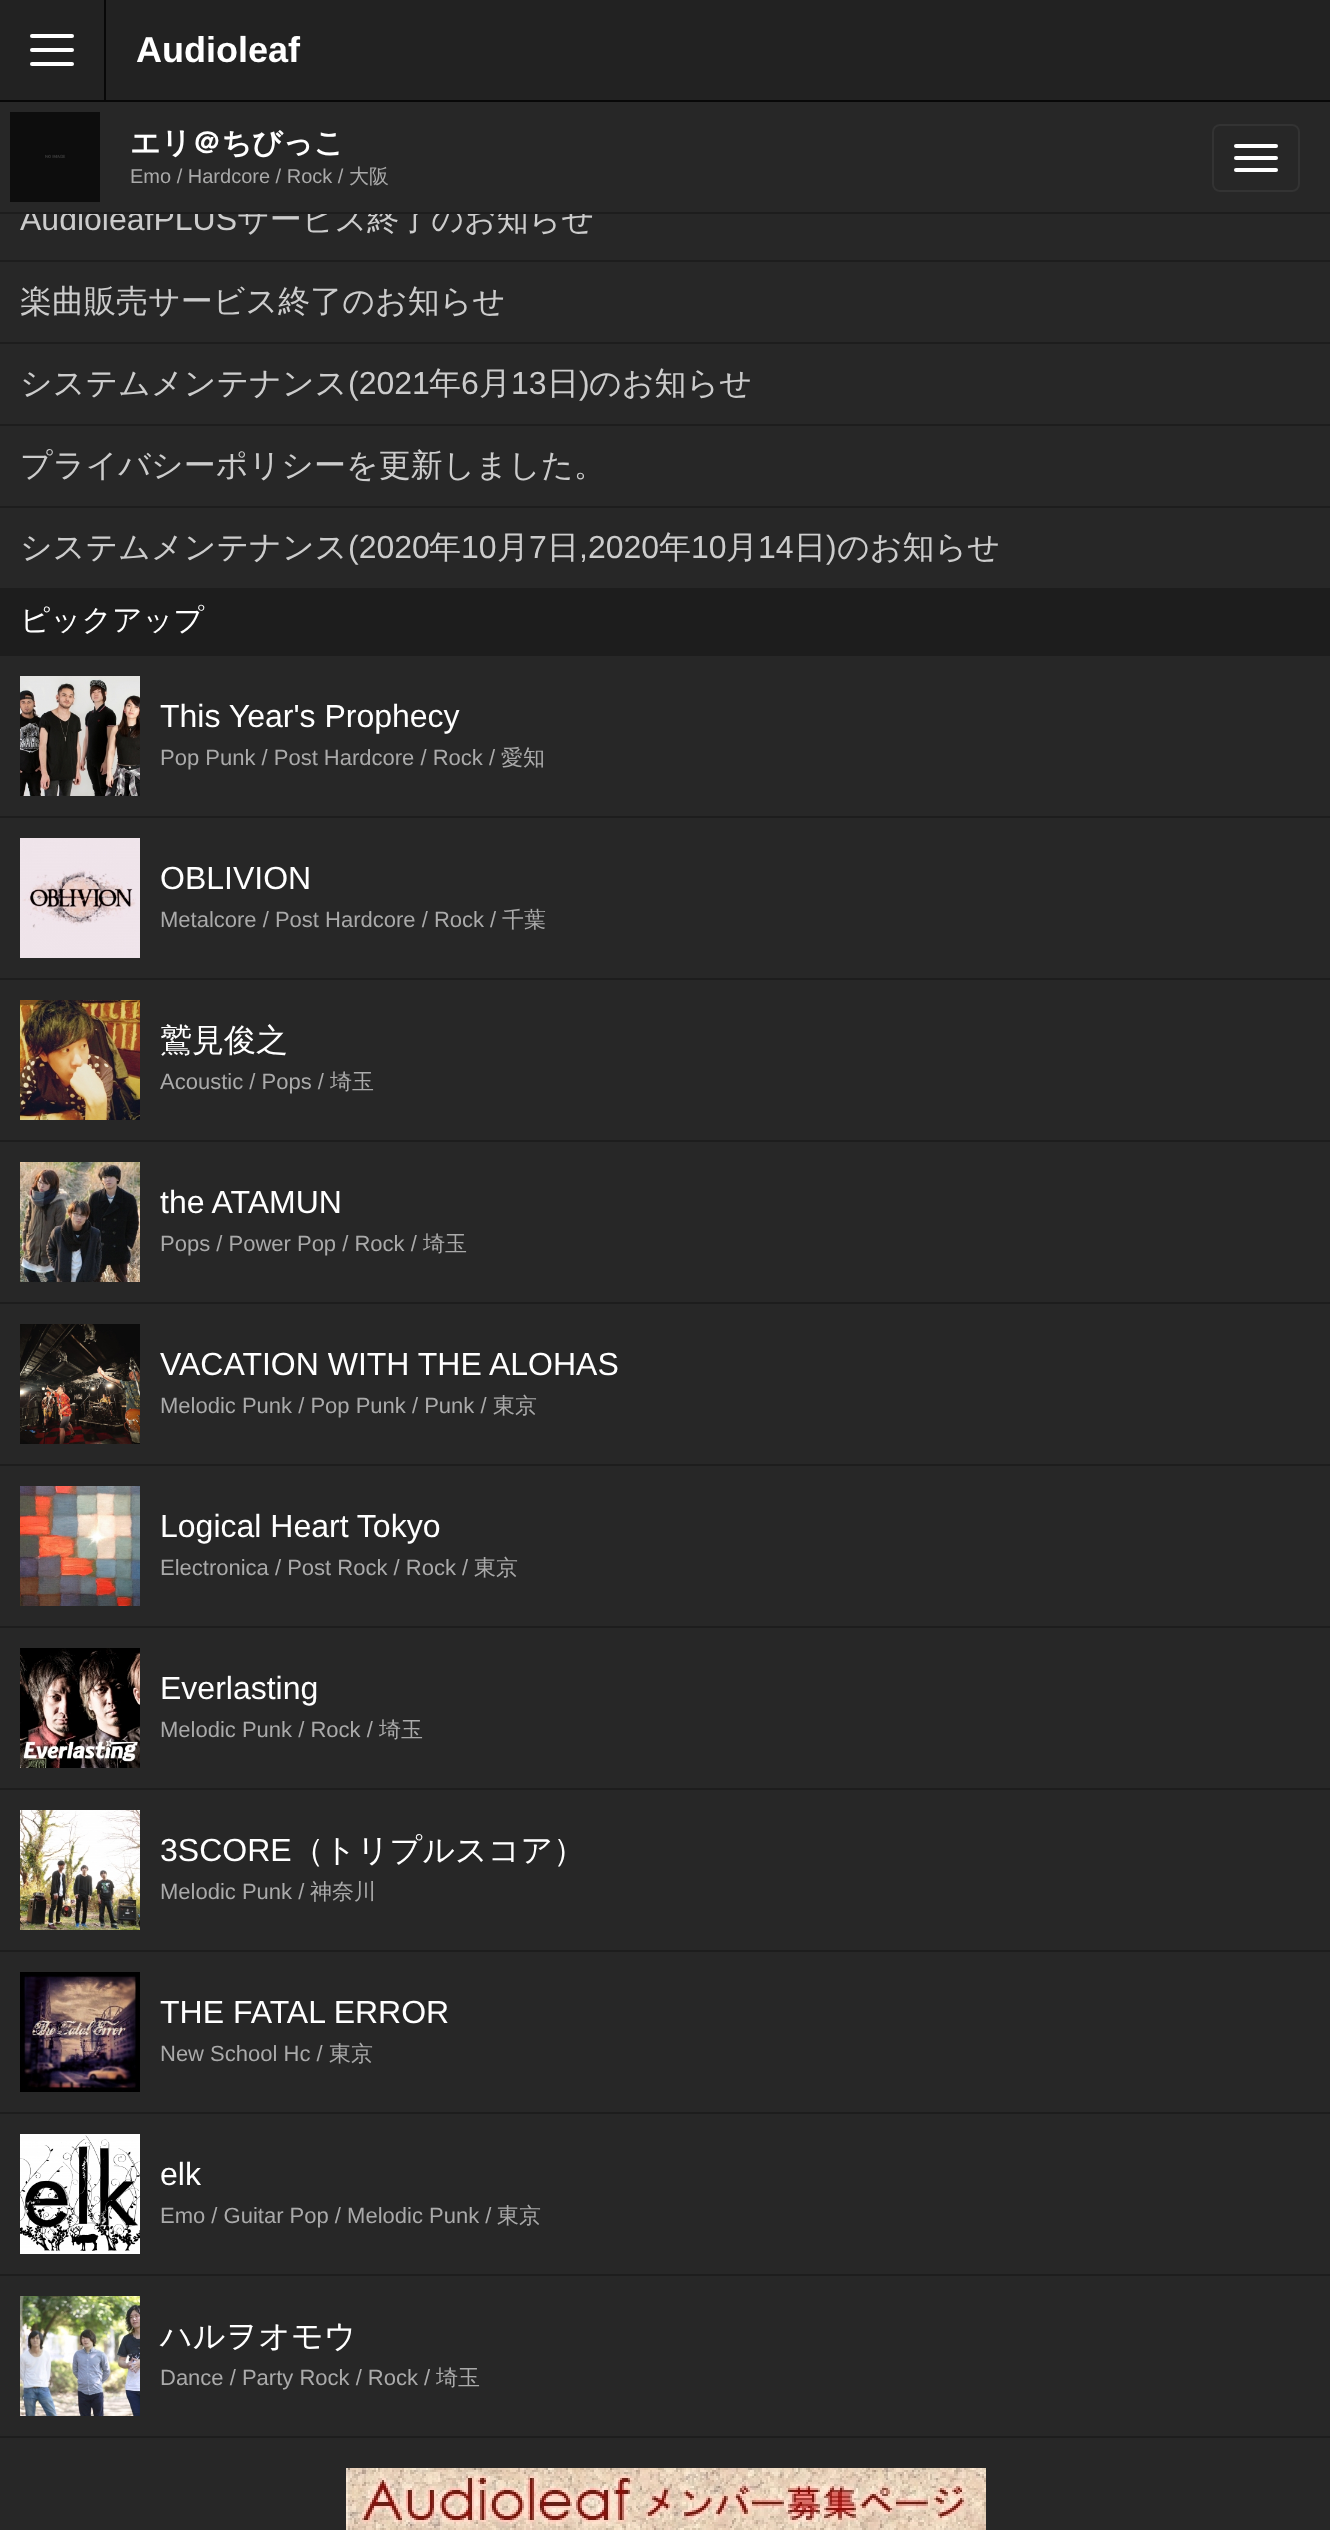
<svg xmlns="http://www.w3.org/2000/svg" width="1330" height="2530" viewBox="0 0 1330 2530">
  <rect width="100%" height="100%" fill="rgb(39,39,39)"/>
  <rect x="0" y="0" width="1330" height="100" fill="rgb(34,34,34)"/>
  <rect x="0" y="100" width="1330" height="2" fill="rgb(8,8,8)"/>
  <rect x="104" y="0" width="2" height="100" fill="rgb(8,8,8)"/>
  <rect x="30" y="34" width="44" height="4" rx="2" fill="rgb(255,255,255)"/>
  <rect x="30" y="48" width="44" height="4" rx="2" fill="rgb(255,255,255)"/>
  <rect x="30" y="62" width="44" height="4" rx="2" fill="rgb(255,255,255)"/>
  <text x="136" y="62" font-family="Liberation Sans" font-size="36" font-weight="bold" fill="rgb(255,255,255)">Audioleaf</text>
  <text x="20" y="230" font-family="Liberation Sans" font-size="32" fill="rgb(204,204,204)">AudioleafPLUS</text>
  <text x="237" y="230" font-family="WenQuanYi Zen Hei" font-size="32" font-weight="500" fill="rgb(204,204,204)">サービス終了のお知らせ</text>
  <rect x="27" y="204" width="559" height="8" fill="rgb(39,39,39)"/>
  <rect x="0" y="212" width="1330" height="2" fill="rgb(29,29,29)"/>
  <image x="10" y="112" width="90" height="90" href="pic1.png"/>
  <text x="130" y="153" font-family="WenQuanYi Zen Hei" font-size="30" font-weight="bold" fill="rgb(255,255,255)">エリ＠ちびっこ</text>
  <text x="130" y="183" font-family="Liberation Sans" font-size="20" fill="rgb(170,170,170)">Emo / Hardcore / Rock /</text>
  <text x="349" y="183" font-family="WenQuanYi Zen Hei" font-size="20" font-weight="500" fill="rgb(170,170,170)">大阪</text>
  <rect x="1213" y="125" width="86" height="66" rx="7" fill="none" stroke="rgb(51,51,51)" stroke-width="2"/>
  <rect x="1234" y="144" width="44" height="4" rx="2" fill="rgb(255,255,255)"/>
  <rect x="1234" y="156" width="44" height="4" rx="2" fill="rgb(255,255,255)"/>
  <rect x="1234" y="168" width="44" height="4" rx="2" fill="rgb(255,255,255)"/>
  <rect x="0" y="260" width="1330" height="2" fill="rgb(29,29,29)"/>
  <text x="20" y="312" font-family="WenQuanYi Zen Hei" font-size="32" font-weight="500" fill="rgb(204,204,204)">楽曲販売サービス終了のお知らせ</text>
  <rect x="0" y="342" width="1330" height="2" fill="rgb(29,29,29)"/>
  <text x="20" y="394" font-family="WenQuanYi Zen Hei" font-size="32" font-weight="500" fill="rgb(204,204,204)">システムメンテナンス</text>
  <text x="348" y="394" font-family="Liberation Sans" font-size="32" fill="rgb(204,204,204)">(2021</text>
  <text x="429" y="394" font-family="WenQuanYi Zen Hei" font-size="32" font-weight="500" fill="rgb(204,204,204)">年</text>
  <text x="461" y="394" font-family="Liberation Sans" font-size="32" fill="rgb(204,204,204)">6</text>
  <text x="479" y="394" font-family="WenQuanYi Zen Hei" font-size="32" font-weight="500" fill="rgb(204,204,204)">月</text>
  <text x="511" y="394" font-family="Liberation Sans" font-size="32" fill="rgb(204,204,204)">13</text>
  <text x="547" y="394" font-family="WenQuanYi Zen Hei" font-size="32" font-weight="500" fill="rgb(204,204,204)">日</text>
  <text x="579" y="394" font-family="Liberation Sans" font-size="32" fill="rgb(204,204,204)">)</text>
  <text x="589" y="394" font-family="WenQuanYi Zen Hei" font-size="32" font-weight="500" fill="rgb(204,204,204)">のお知らせ</text>
  <rect x="0" y="424" width="1330" height="2" fill="rgb(29,29,29)"/>
  <text x="20" y="476" font-family="WenQuanYi Zen Hei" font-size="32" font-weight="500" fill="rgb(204,204,204)">プライバシーポリシーを更新しました。</text>
  <rect x="0" y="506" width="1330" height="2" fill="rgb(29,29,29)"/>
  <text x="20" y="558" font-family="WenQuanYi Zen Hei" font-size="32" font-weight="500" fill="rgb(204,204,204)">システムメンテナンス</text>
  <text x="348" y="558" font-family="Liberation Sans" font-size="32" fill="rgb(204,204,204)">(2020</text>
  <text x="429" y="558" font-family="WenQuanYi Zen Hei" font-size="32" font-weight="500" fill="rgb(204,204,204)">年</text>
  <text x="461" y="558" font-family="Liberation Sans" font-size="32" fill="rgb(204,204,204)">10</text>
  <text x="497" y="558" font-family="WenQuanYi Zen Hei" font-size="32" font-weight="500" fill="rgb(204,204,204)">月</text>
  <text x="529" y="558" font-family="Liberation Sans" font-size="32" fill="rgb(204,204,204)">7</text>
  <text x="547" y="558" font-family="WenQuanYi Zen Hei" font-size="32" font-weight="500" fill="rgb(204,204,204)">日</text>
  <text x="579" y="558" font-family="Liberation Sans" font-size="32" fill="rgb(204,204,204)">,2020</text>
  <text x="659" y="558" font-family="WenQuanYi Zen Hei" font-size="32" font-weight="500" fill="rgb(204,204,204)">年</text>
  <text x="691" y="558" font-family="Liberation Sans" font-size="32" fill="rgb(204,204,204)">10</text>
  <text x="726" y="558" font-family="WenQuanYi Zen Hei" font-size="32" font-weight="500" fill="rgb(204,204,204)">月</text>
  <text x="758" y="558" font-family="Liberation Sans" font-size="32" fill="rgb(204,204,204)">14</text>
  <text x="794" y="558" font-family="WenQuanYi Zen Hei" font-size="32" font-weight="500" fill="rgb(204,204,204)">日</text>
  <text x="826" y="558" font-family="Liberation Sans" font-size="32" fill="rgb(204,204,204)">)</text>
  <text x="837" y="558" font-family="WenQuanYi Zen Hei" font-size="32" font-weight="500" fill="rgb(204,204,204)">のお知らせ</text>
  <rect x="0" y="588" width="1330" height="68" fill="rgb(29,29,29)"/>
  <text x="20" y="630" font-family="WenQuanYi Zen Hei" font-size="30" font-weight="500" fill="rgb(255,255,255)">ピックアップ</text>
  <image x="20" y="676" width="120" height="120" href="pic2.png"/>
  <text x="160" y="727" font-family="Liberation Sans" font-size="32" fill="rgb(255,255,255)">This Year's Prophecy</text>
  <text x="160" y="765" font-family="Liberation Sans" font-size="22" fill="rgb(170,170,170)">Pop Punk / Post Hardcore / Rock /</text>
  <text x="501" y="765" font-family="WenQuanYi Zen Hei" font-size="22" font-weight="500" fill="rgb(170,170,170)">愛知</text>
  <rect x="0" y="816" width="1330" height="2" fill="rgb(29,29,29)"/>
  <image x="20" y="838" width="120" height="120" href="pic3.png"/>
  <text x="160" y="889" font-family="Liberation Sans" font-size="32" fill="rgb(255,255,255)">OBLIVION</text>
  <text x="160" y="927" font-family="Liberation Sans" font-size="22" fill="rgb(170,170,170)">Metalcore / Post Hardcore / Rock /</text>
  <text x="502" y="927" font-family="WenQuanYi Zen Hei" font-size="22" font-weight="500" fill="rgb(170,170,170)">千葉</text>
  <rect x="0" y="978" width="1330" height="2" fill="rgb(29,29,29)"/>
  <image x="20" y="1000" width="120" height="120" href="pic4.png"/>
  <text x="160" y="1051" font-family="WenQuanYi Zen Hei" font-size="32" font-weight="500" fill="rgb(255,255,255)">鷲見俊之</text>
  <text x="160" y="1089" font-family="Liberation Sans" font-size="22" fill="rgb(170,170,170)">Acoustic / Pops /</text>
  <text x="330" y="1089" font-family="WenQuanYi Zen Hei" font-size="22" font-weight="500" fill="rgb(170,170,170)">埼玉</text>
  <rect x="0" y="1140" width="1330" height="2" fill="rgb(29,29,29)"/>
  <image x="20" y="1162" width="120" height="120" href="pic5.png"/>
  <text x="160" y="1213" font-family="Liberation Sans" font-size="32" fill="rgb(255,255,255)">the ATAMUN</text>
  <text x="160" y="1251" font-family="Liberation Sans" font-size="22" fill="rgb(170,170,170)">Pops / Power Pop / Rock /</text>
  <text x="423" y="1251" font-family="WenQuanYi Zen Hei" font-size="22" font-weight="500" fill="rgb(170,170,170)">埼玉</text>
  <rect x="0" y="1302" width="1330" height="2" fill="rgb(29,29,29)"/>
  <image x="20" y="1324" width="120" height="120" href="pic6.png"/>
  <text x="160" y="1375" font-family="Liberation Sans" font-size="32" fill="rgb(255,255,255)">VACATION WITH THE ALOHAS</text>
  <text x="160" y="1413" font-family="Liberation Sans" font-size="22" fill="rgb(170,170,170)">Melodic Punk / Pop Punk / Punk /</text>
  <text x="493" y="1413" font-family="WenQuanYi Zen Hei" font-size="22" font-weight="500" fill="rgb(170,170,170)">東京</text>
  <rect x="0" y="1464" width="1330" height="2" fill="rgb(29,29,29)"/>
  <image x="20" y="1486" width="120" height="120" href="pic7.png"/>
  <text x="160" y="1537" font-family="Liberation Sans" font-size="32" fill="rgb(255,255,255)">Logical Heart Tokyo</text>
  <text x="160" y="1575" font-family="Liberation Sans" font-size="22" fill="rgb(170,170,170)">Electronica / Post Rock / Rock /</text>
  <text x="474" y="1575" font-family="WenQuanYi Zen Hei" font-size="22" font-weight="500" fill="rgb(170,170,170)">東京</text>
  <rect x="0" y="1626" width="1330" height="2" fill="rgb(29,29,29)"/>
  <image x="20" y="1648" width="120" height="120" href="pic8.png"/>
  <text x="160" y="1699" font-family="Liberation Sans" font-size="32" fill="rgb(255,255,255)">Everlasting</text>
  <text x="160" y="1737" font-family="Liberation Sans" font-size="22" fill="rgb(170,170,170)">Melodic Punk / Rock /</text>
  <text x="379" y="1737" font-family="WenQuanYi Zen Hei" font-size="22" font-weight="500" fill="rgb(170,170,170)">埼玉</text>
  <rect x="0" y="1788" width="1330" height="2" fill="rgb(29,29,29)"/>
  <image x="20" y="1810" width="120" height="120" href="pic9.png"/>
  <text x="160" y="1861" font-family="Liberation Sans" font-size="32" fill="rgb(255,255,255)">3SCORE</text>
  <text x="292" y="1861" font-family="WenQuanYi Zen Hei" font-size="32" font-weight="500" fill="rgb(255,255,255)">（トリプルスコア）</text>
  <text x="160" y="1899" font-family="Liberation Sans" font-size="22" fill="rgb(170,170,170)">Melodic Punk /</text>
  <text x="310" y="1899" font-family="WenQuanYi Zen Hei" font-size="22" font-weight="500" fill="rgb(170,170,170)">神奈川</text>
  <rect x="0" y="1950" width="1330" height="2" fill="rgb(29,29,29)"/>
  <image x="20" y="1972" width="120" height="120" href="pic10.png"/>
  <text x="160" y="2023" font-family="Liberation Sans" font-size="32" fill="rgb(255,255,255)">THE FATAL ERROR</text>
  <text x="160" y="2061" font-family="Liberation Sans" font-size="22" fill="rgb(170,170,170)">New School Hc /</text>
  <text x="329" y="2061" font-family="WenQuanYi Zen Hei" font-size="22" font-weight="500" fill="rgb(170,170,170)">東京</text>
  <rect x="0" y="2112" width="1330" height="2" fill="rgb(29,29,29)"/>
  <image x="20" y="2134" width="120" height="120" href="pic11.png"/>
  <text x="160" y="2185" font-family="Liberation Sans" font-size="32" fill="rgb(255,255,255)">elk</text>
  <text x="160" y="2223" font-family="Liberation Sans" font-size="22" fill="rgb(170,170,170)">Emo / Guitar Pop / Melodic Punk /</text>
  <text x="497" y="2223" font-family="WenQuanYi Zen Hei" font-size="22" font-weight="500" fill="rgb(170,170,170)">東京</text>
  <rect x="0" y="2274" width="1330" height="2" fill="rgb(29,29,29)"/>
  <image x="20" y="2296" width="120" height="120" href="pic12.png"/>
  <text x="160" y="2347" font-family="WenQuanYi Zen Hei" font-size="32" font-weight="500" fill="rgb(255,255,255)">ハルヲオモウ</text>
  <text x="160" y="2385" font-family="Liberation Sans" font-size="22" fill="rgb(170,170,170)">Dance / Party Rock / Rock /</text>
  <text x="436" y="2385" font-family="WenQuanYi Zen Hei" font-size="22" font-weight="500" fill="rgb(170,170,170)">埼玉</text>
  <rect x="0" y="2436" width="1330" height="2" fill="rgb(29,29,29)"/>
  <image x="346" y="2468" width="640" height="62" href="pic13.png"/>
</svg>
